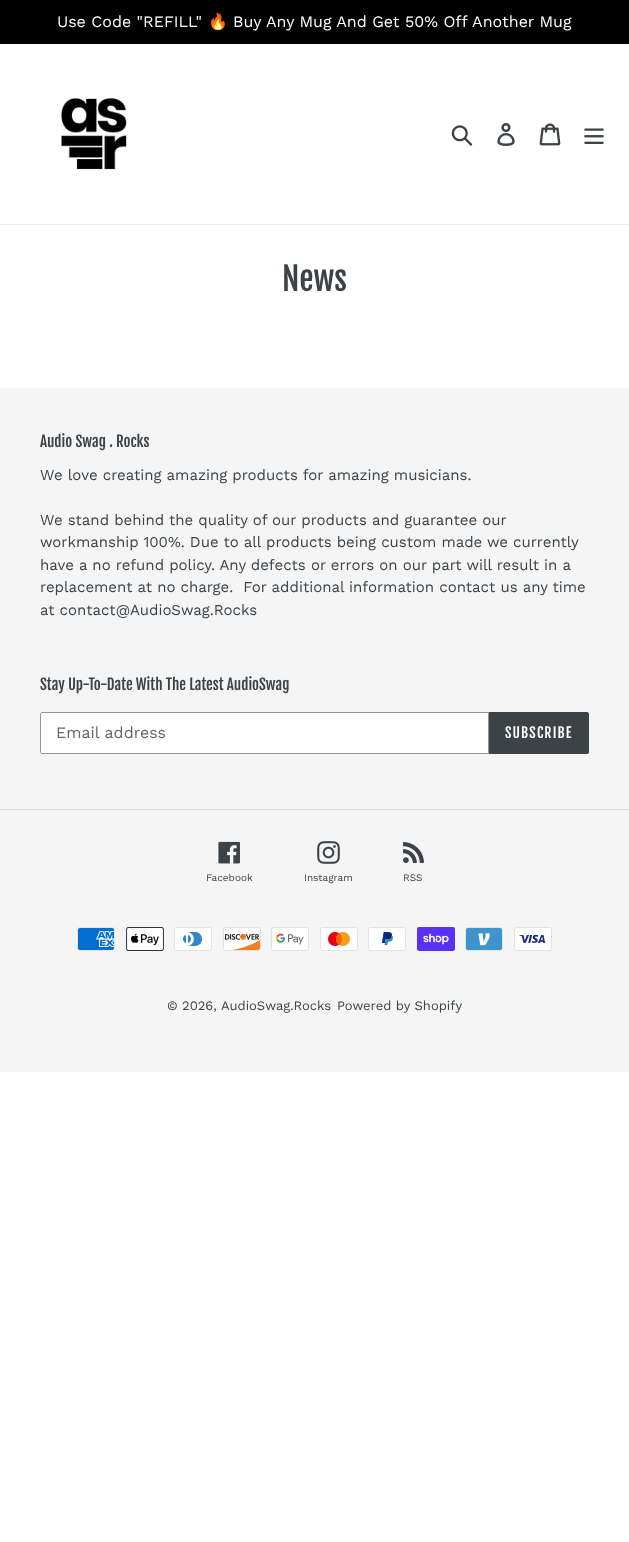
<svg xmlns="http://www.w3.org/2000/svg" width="629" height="1542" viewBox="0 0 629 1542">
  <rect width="100%" height="100%" fill="rgb(255,255,255)"/>
  <rect x="0" y="0" width="629" height="44" fill="rgb(0,0,0)"/>
  <text x="57" y="27" font-family="Work Sans" font-size="16" fill="rgb(255,255,255)">Use Code "REFILL"</text>
  <text x="208" y="27" font-family="Noto Color Emoji" font-size="16" fill="rgb(255,255,255)">🔥</text>
  <text x="233" y="27" font-family="Work Sans" font-size="16" fill="rgb(255,255,255)">Buy Any Mug And Get 50% Off Another Mug</text>
  <rect x="0" y="224" width="629" height="1" fill="rgb(232,233,235)"/>
  <image x="61" y="98" width="66" height="72" href="pic1.png"/>
  <image x="451" y="125" width="22" height="21" href="pic2.png"/>
  <image x="497" y="123" width="18" height="23" href="pic3.png"/>
  <image x="539" y="123" width="22" height="23" href="pic4.png"/>
  <image x="584" y="128" width="20" height="16" href="pic5.png"/>
  <text x="282" y="291" font-family="Fjalla One" font-size="32" fill="rgb(61,66,70)">News</text>
  <rect x="0" y="388" width="629" height="684" fill="rgb(245,245,245)"/>
  <text x="40" y="447" font-family="Fjalla One" font-size="15" fill="rgb(61,66,70)">Audio Swag . Rocks</text>
  <g font-family="Work Sans" font-size="15" fill="rgb(61,66,70)">
    <text x="40" y="480">We love creating amazing products for amazing musicians.</text>
    <text xml:space="preserve"><tspan x="40" y="525">We stand behind the quality of our products and guarantee our</tspan><tspan x="40" y="547">workmanship 100%. Due to all products being custom made we currently</tspan><tspan x="40" y="570">have a no refund policy. Any defects or errors on our part will result in a</tspan><tspan x="40" y="592">replacement at no charge.  For additional information contact us any time</tspan><tspan x="40" y="615">at contact@AudioSwag.Rocks</tspan></text>
  </g>
  <text x="40" y="690" font-family="Fjalla One" font-size="15" fill="rgb(61,66,70)">Stay Up-To-Date With The Latest AudioSwag</text>
  <path d="M42 712.5H488.5V753.5H42C41 753.5 40.5 753 40.5 752V714C40.5 713 41 712.5 42 712.5Z" fill="rgb(255,255,255)" stroke="rgb(148,148,148)"/>
  <text x="56" y="738" font-family="Work Sans" font-size="16" fill="rgb(102,102,102)">Email address</text>
  <path d="M489 712H587C588 712 589 713 589 714V752C589 753 588 754 587 754H489Z" fill="rgb(61,66,70)"/>
  <text x="505" y="738" font-family="Fjalla One" font-size="14" letter-spacing="1.1" fill="rgb(255,255,255)">SUBSCRIBE</text>
  <rect x="0" y="809" width="629" height="1" fill="rgb(220,220,220)"/>
  <image x="218" y="841" width="22" height="23" href="pic6.png"/>
  <text x="206" y="881" font-family="Work Sans" font-size="10" fill="rgb(61,66,70)">Facebook</text>
  <image x="317" y="841" width="23" height="23" href="pic7.png"/>
  <text x="304" y="881" font-family="Work Sans" font-size="10" fill="rgb(61,66,70)">Instagram</text>
  <image x="403" y="842" width="21" height="21" href="pic8.png"/>
  <text x="403" y="881" font-family="Work Sans" font-size="10" fill="rgb(61,66,70)">RSS</text>
  <image x="77" y="927" width="38" height="24" href="pic9.png"/>
  <image x="126" y="927" width="38" height="24" href="pic10.png"/>
  <image x="174" y="927" width="38" height="24" href="pic11.png"/>
  <image x="223" y="927" width="38" height="24" href="pic12.png"/>
  <image x="271" y="927" width="38" height="24" href="pic13.png"/>
  <image x="320" y="927" width="38" height="24" href="pic14.png"/>
  <image x="368" y="927" width="38" height="24" href="pic15.png"/>
  <image x="417" y="927" width="38" height="24" href="pic16.png"/>
  <image x="465" y="927" width="38" height="24" href="pic17.png"/>
  <image x="514" y="927" width="38" height="24" href="pic18.png"/>
  <g font-family="Work Sans" font-size="13" fill="rgb(61,66,70)">
    <text x="167" y="1010">© 2026,</text>
    <text x="221" y="1010">AudioSwag.Rocks</text>
    <text x="337" y="1010">Powered by Shopify</text>
  </g>
</svg>
